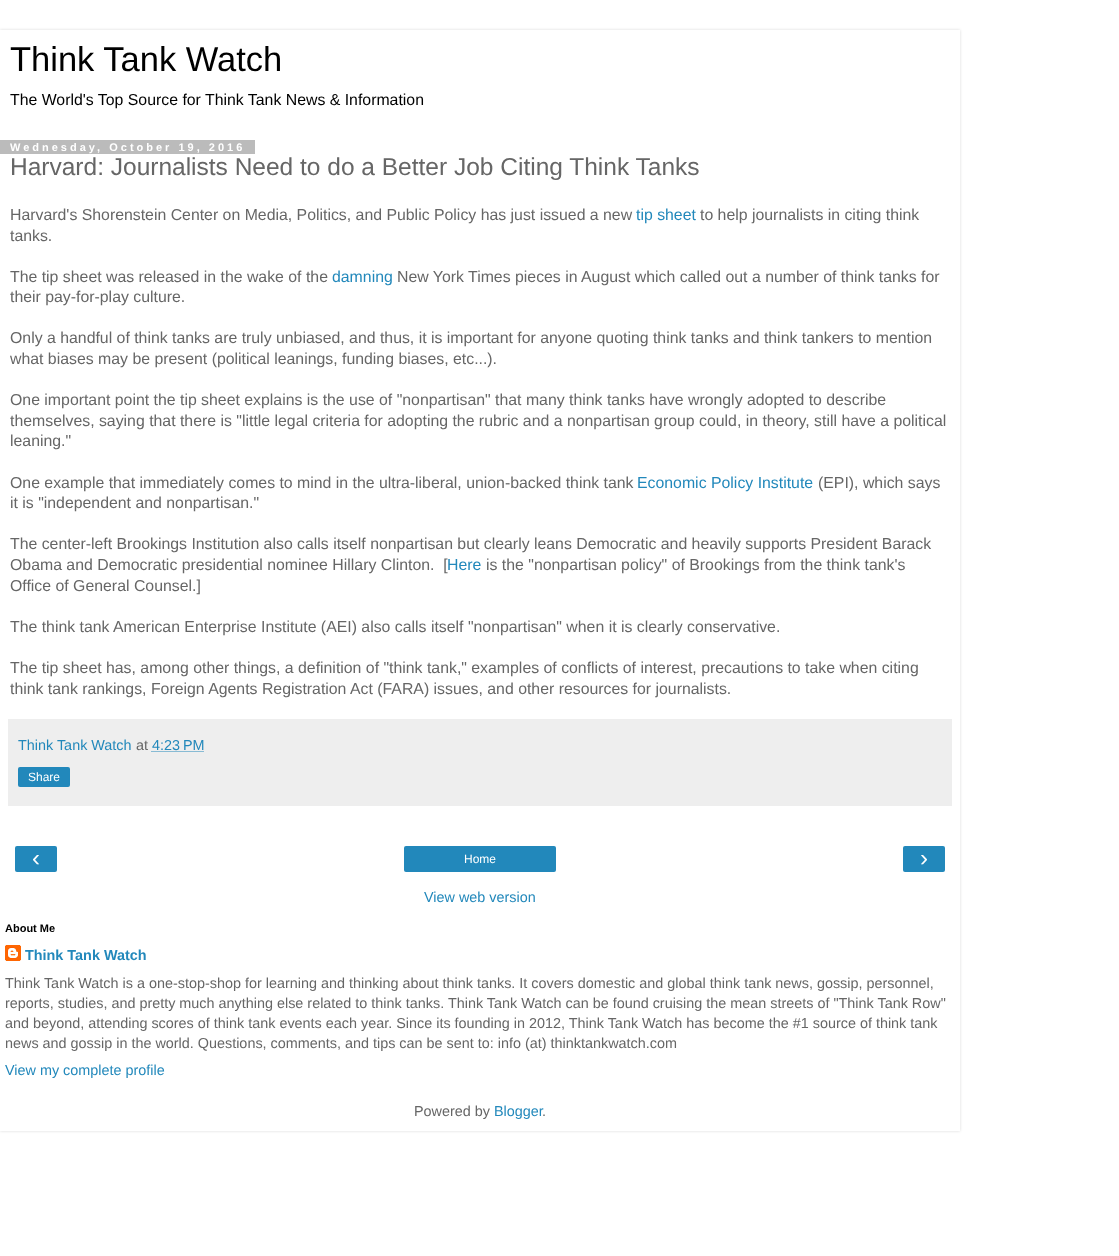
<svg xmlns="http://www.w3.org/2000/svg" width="1119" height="1256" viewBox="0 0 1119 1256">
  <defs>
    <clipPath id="clip1"><path d="M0 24H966V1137H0ZM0 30H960V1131H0Z" clip-rule="evenodd"/></clipPath>
  </defs>
  <rect width="100%" height="100%" fill="rgb(255,255,255)"/>
  <g clip-path="url(#clip1)">
    <rect x="0" y="30" width="960" height="1101" fill="rgba(0,0,0,0.15)" filter="blur(1.5px)"/>
  </g>
  <text x="10" y="71" font-family="Liberation Sans" font-size="34.5" fill="rgb(0,0,0)">Think Tank Watch</text>
  <text x="10" y="105" font-family="Liberation Sans" font-size="15.85" fill="rgb(0,0,0)">The World's Top Source for Think Tank News &amp; Information</text>
  <rect x="0" y="140" width="255" height="14" fill="rgb(187,187,187)"/>
  <text x="10" y="151" font-family="Liberation Sans" font-size="11" font-weight="bold" letter-spacing="3" fill="rgb(255,255,255)">Wednesday, October 19, 2016</text>
  <text x="10" y="175" font-family="Liberation Sans" font-size="24.5" fill="rgb(102,102,102)">Harvard: Journalists Need to do a Better Job Citing Think Tanks</text>
  <text x="10" y="220" font-family="Liberation Sans" font-size="15.85" fill="rgb(102,102,102)">Harvard's Shorenstein Center on Media, Politics, and Public Policy has just issued a new</text>
  <text x="636" y="220" font-family="Liberation Sans" font-size="15.85" fill="rgb(34,136,187)">tip sheet</text>
  <g font-family="Liberation Sans" font-size="15.85" fill="rgb(102,102,102)">
    <text x="700" y="220">to help journalists in citing think</text>
    <text x="10" y="241">tanks.</text>
    <text x="10" y="282">The tip sheet was released in the wake of the</text>
  </g>
  <text x="332" y="282" font-family="Liberation Sans" font-size="15.85" fill="rgb(34,136,187)">damning</text>
  <g font-family="Liberation Sans" font-size="15.85" fill="rgb(102,102,102)">
    <text x="397" y="282">New York Times pieces in August which called out a number of think tanks for</text>
    <text x="10" y="302">their pay-for-play culture.</text>
    <text>
      <tspan x="10" y="343">Only a handful of think tanks are truly unbiased, and thus, it is important for anyone quoting think tanks and think tankers to mention</tspan>
      <tspan x="10" y="364">what biases may be present (political leanings, funding biases, etc...).</tspan>
    </text>
    <text>
      <tspan x="10" y="405">One important point the tip sheet explains is the use of "nonpartisan" that many think tanks have wrongly adopted to describe</tspan>
      <tspan x="10" y="426">themselves, saying that there is "little legal criteria for adopting the rubric and a nonpartisan group could, in theory, still have a political</tspan>
      <tspan x="10" y="446">leaning."</tspan>
    </text>
    <text x="10" y="488">One example that immediately comes to mind in the ultra-liberal, union-backed think tank</text>
  </g>
  <text x="637" y="488" font-family="Liberation Sans" font-size="15.85" fill="rgb(34,136,187)">Economic Policy Institute</text>
  <g font-family="Liberation Sans" font-size="15.85" fill="rgb(102,102,102)">
    <text x="818" y="488">(EPI), which says</text>
    <text x="10" y="508">it is "independent and nonpartisan."</text>
    <text xml:space="preserve"><tspan x="10" y="549">The center-left Brookings Institution also calls itself nonpartisan but clearly leans Democratic and heavily supports President Barack</tspan><tspan x="10" y="570">Obama and Democratic presidential nominee Hillary Clinton.  [</tspan></text>
  </g>
  <text x="447" y="570" font-family="Liberation Sans" font-size="15.85" fill="rgb(34,136,187)">Here</text>
  <g font-family="Liberation Sans" font-size="15.85" fill="rgb(102,102,102)">
    <text x="486" y="570">is the "nonpartisan policy" of Brookings from the think tank's</text>
    <text x="10" y="591">Office of General Counsel.]</text>
    <text x="10" y="632">The think tank American Enterprise Institute (AEI) also calls itself "nonpartisan" when it is clearly conservative.</text>
    <text>
      <tspan x="10" y="673">The tip sheet has, among other things, a definition of "think tank," examples of conflicts of interest, precautions to take when citing</tspan>
      <tspan x="10" y="694">think tank rankings, Foreign Agents Registration Act (FARA) issues, and other resources for journalists.</tspan>
    </text>
  </g>
  <rect x="8" y="719" width="944" height="87" fill="rgb(238,238,238)"/>
  <text x="18" y="750" font-family="Liberation Sans" font-size="14.4" fill="rgb(34,136,187)">Think Tank Watch</text>
  <text x="136" y="750" font-family="Liberation Sans" font-size="14.4" fill="rgb(102,102,102)">at</text>
  <text x="152" y="750" font-family="Liberation Sans" font-size="14.4" fill="rgb(34,136,187)">4:23 PM</text>
  <path d="M151.5 751.5H204" fill="none" stroke="rgb(34,136,187)" stroke-dasharray="1 1"/>
  <rect x="18" y="767" width="52" height="20" rx="2" fill="rgb(34,136,187)"/>
  <text x="28" y="781" font-family="Liberation Sans" font-size="12" fill="rgb(255,255,255)">Share</text>
  <rect x="15" y="846" width="42" height="26" rx="2" fill="rgb(34,136,187)"/>
  <text x="32" y="866" font-family="Liberation Sans" font-size="24" fill="rgb(255,255,255)">‹</text>
  <rect x="404" y="846" width="152" height="26" rx="2" fill="rgb(34,136,187)"/>
  <text x="464" y="863" font-family="Liberation Sans" font-size="12" fill="rgb(255,255,255)">Home</text>
  <rect x="903" y="846" width="42" height="26" rx="2" fill="rgb(34,136,187)"/>
  <text x="920" y="866" font-family="Liberation Sans" font-size="24" fill="rgb(255,255,255)">›</text>
  <text x="424" y="902" font-family="Liberation Sans" font-size="14.4" fill="rgb(34,136,187)">View web version</text>
  <text x="5" y="932" font-family="Liberation Sans" font-size="11" font-weight="bold" fill="rgb(0,0,0)">About Me</text>
  <image x="5" y="945" width="16" height="16" href="pic1.png"/>
  <text x="25" y="960" font-family="Liberation Sans" font-size="14.4" font-weight="bold" fill="rgb(34,136,187)">Think Tank Watch</text>
  <g font-family="Liberation Sans" font-size="14.4" fill="rgb(102,102,102)">
    <text>
      <tspan x="5" y="988">Think Tank Watch is a one-stop-shop for learning and thinking about think tanks. It covers domestic and global think tank news, gossip, personnel,</tspan>
      <tspan x="5" y="1008">reports, studies, and pretty much anything else related to think tanks. Think Tank Watch can be found cruising the mean streets of "Think Tank Row"</tspan>
      <tspan x="5" y="1028">and beyond, attending scores of think tank events each year. Since its founding in 2012, Think Tank Watch has become the #1 source of think tank</tspan>
      <tspan x="5" y="1048">news and gossip in the world. Questions, comments, and tips can be sent to: info (at) thinktankwatch.com</tspan>
    </text>
  </g>
  <text x="5" y="1075" font-family="Liberation Sans" font-size="14.4" fill="rgb(34,136,187)">View my complete profile</text>
  <text x="414" y="1116" font-family="Liberation Sans" font-size="14.4" fill="rgb(102,102,102)">Powered by</text>
  <text x="494" y="1116" font-family="Liberation Sans" font-size="14.4" fill="rgb(34,136,187)">Blogger</text>
  <text x="542" y="1116" font-family="Liberation Sans" font-size="14.4" fill="rgb(102,102,102)">.</text>
</svg>
